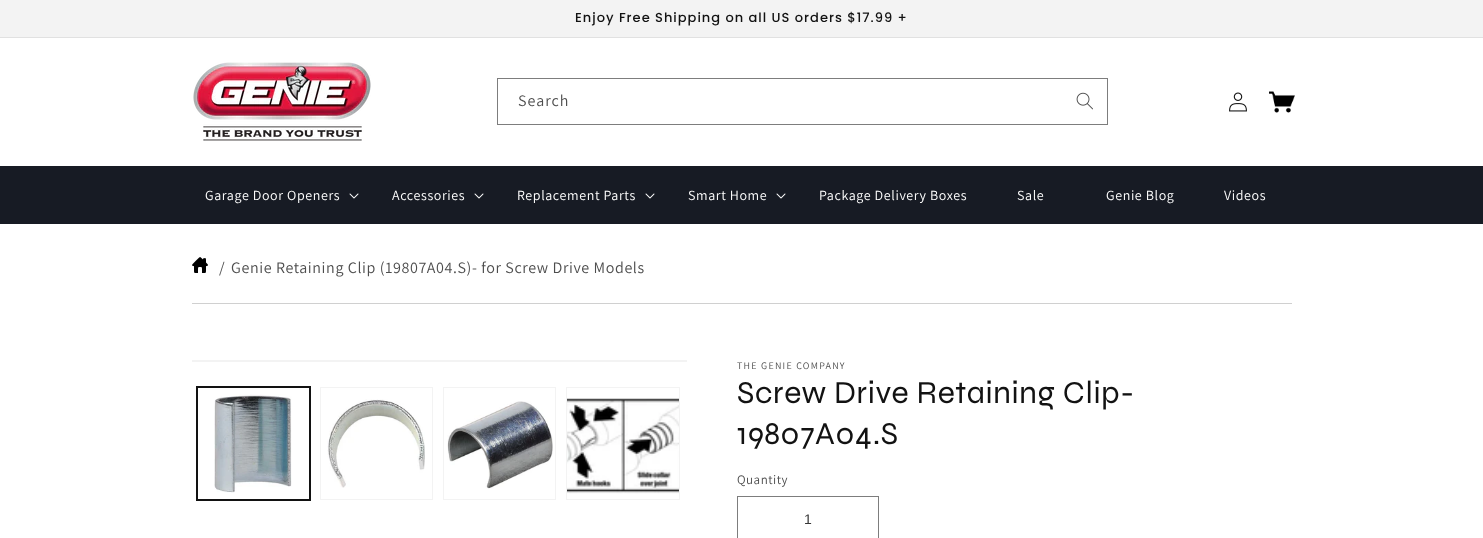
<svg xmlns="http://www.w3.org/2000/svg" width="1483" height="538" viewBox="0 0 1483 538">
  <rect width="100%" height="100%" fill="rgb(255,255,255)"/>
  <rect x="0" y="0" width="1483" height="37" fill="rgb(243,243,243)"/>
  <rect x="0" y="37" width="1483" height="1" fill="rgb(225,225,225)"/>
  <text x="575" y="22" font-family="Poppins" font-size="13" font-weight="500" letter-spacing="1" fill="rgb(18,18,18)">Enjoy Free Shipping on all US orders $17.99 +</text>
  <image x="193" y="62" width="178" height="79" href="pic1.png"/>
  <image x="1076" y="92" width="17" height="18" href="pic2.png"/>
  <rect x="497.5" y="78.5" width="610" height="46" fill="none" stroke="rgb(125,125,125)"/>
  <text x="518" y="106" font-family="Assistant" font-size="16" letter-spacing="1" fill="rgb(77,77,77)">Search</text>
  <image x="1229" y="92" width="18" height="20" href="pic3.png"/>
  <image x="1269" y="91" width="26" height="22" href="pic4.png"/>
  <rect x="0" y="166" width="1483" height="58" fill="rgb(23,27,36)"/>
  <text x="205" y="200" font-family="Assistant" font-size="14" letter-spacing="0.6" fill="rgb(255,255,255)">Garage Door Openers</text>
  <image x="349" y="193" width="10" height="6" href="pic5.png"/>
  <text x="392" y="200" font-family="Assistant" font-size="14" letter-spacing="0.6" fill="rgb(255,255,255)">Accessories</text>
  <image x="474" y="193" width="10" height="6" href="pic5.png"/>
  <text x="517" y="200" font-family="Assistant" font-size="14" letter-spacing="0.6" fill="rgb(255,255,255)">Replacement Parts</text>
  <image x="645" y="193" width="10" height="6" href="pic5.png"/>
  <text x="688" y="200" font-family="Assistant" font-size="14" letter-spacing="0.6" fill="rgb(255,255,255)">Smart Home</text>
  <image x="776" y="193" width="10" height="6" href="pic5.png"/>
  <g font-family="Assistant" font-size="14" letter-spacing="0.6" fill="rgb(255,255,255)">
    <text x="819" y="200">Package Delivery Boxes</text>
    <text x="1017" y="200">Sale</text>
    <text x="1106" y="200">Genie Blog</text>
    <text x="1224" y="200">Videos</text>
  </g>
  <image x="192" y="257" width="16" height="16" href="pic6.png"/>
  <g font-family="Assistant" font-size="16" letter-spacing="0.6" fill="rgb(77,77,77)">
    <text x="219" y="273">/</text>
    <text x="231" y="273">Genie Retaining Clip (19807A04.S)- for Screw Drive Models</text>
  </g>
  <rect x="192" y="303" width="1100" height="1" fill="rgb(208,208,208)"/>
  <rect x="192" y="360" width="495" height="2" fill="rgb(243,243,243)"/>
  <rect x="196.5" y="386.5" width="114" height="114" fill="none" stroke="rgb(18,18,18)"/>
  <rect x="197.5" y="387.5" width="112" height="112" fill="none" stroke="rgb(18,18,18)"/>
  <image x="214" y="394" width="78" height="99" href="pic7.png"/>
  <rect x="320.5" y="387.5" width="112" height="112" fill="none" stroke="rgb(243,243,243)"/>
  <image x="327" y="399" width="98" height="89" href="pic8.png"/>
  <rect x="443.5" y="387.5" width="112" height="112" fill="none" stroke="rgb(243,243,243)"/>
  <image x="447" y="401" width="106" height="88" href="pic9.png"/>
  <rect x="566.5" y="387.5" width="113" height="112" fill="none" stroke="rgb(243,243,243)"/>
  <image x="567" y="398" width="112" height="96" href="pic10.png"/>
  <text x="737" y="369" font-family="Assistant" font-size="10" letter-spacing="1.25" fill="rgb(77,77,77)">THE GENIE COMPANY</text>
  <g font-family="Syne" font-size="32" letter-spacing="0.6" fill="rgb(18,18,18)">
    <text>
      <tspan x="737" y="403">Screw Drive Retaining Clip-</tspan>
      <tspan x="737" y="444">19807A04.S</tspan>
    </text>
  </g>
  <text x="737" y="484" font-family="Assistant" font-size="13" letter-spacing="0.5" fill="rgb(77,77,77)">Quantity</text>
  <rect x="737.5" y="496.5" width="141" height="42" fill="none" stroke="rgb(125,125,125)"/>
  <text x="804" y="524" font-family="Liberation Sans" font-size="14" fill="rgb(54,54,54)">1</text>
</svg>
